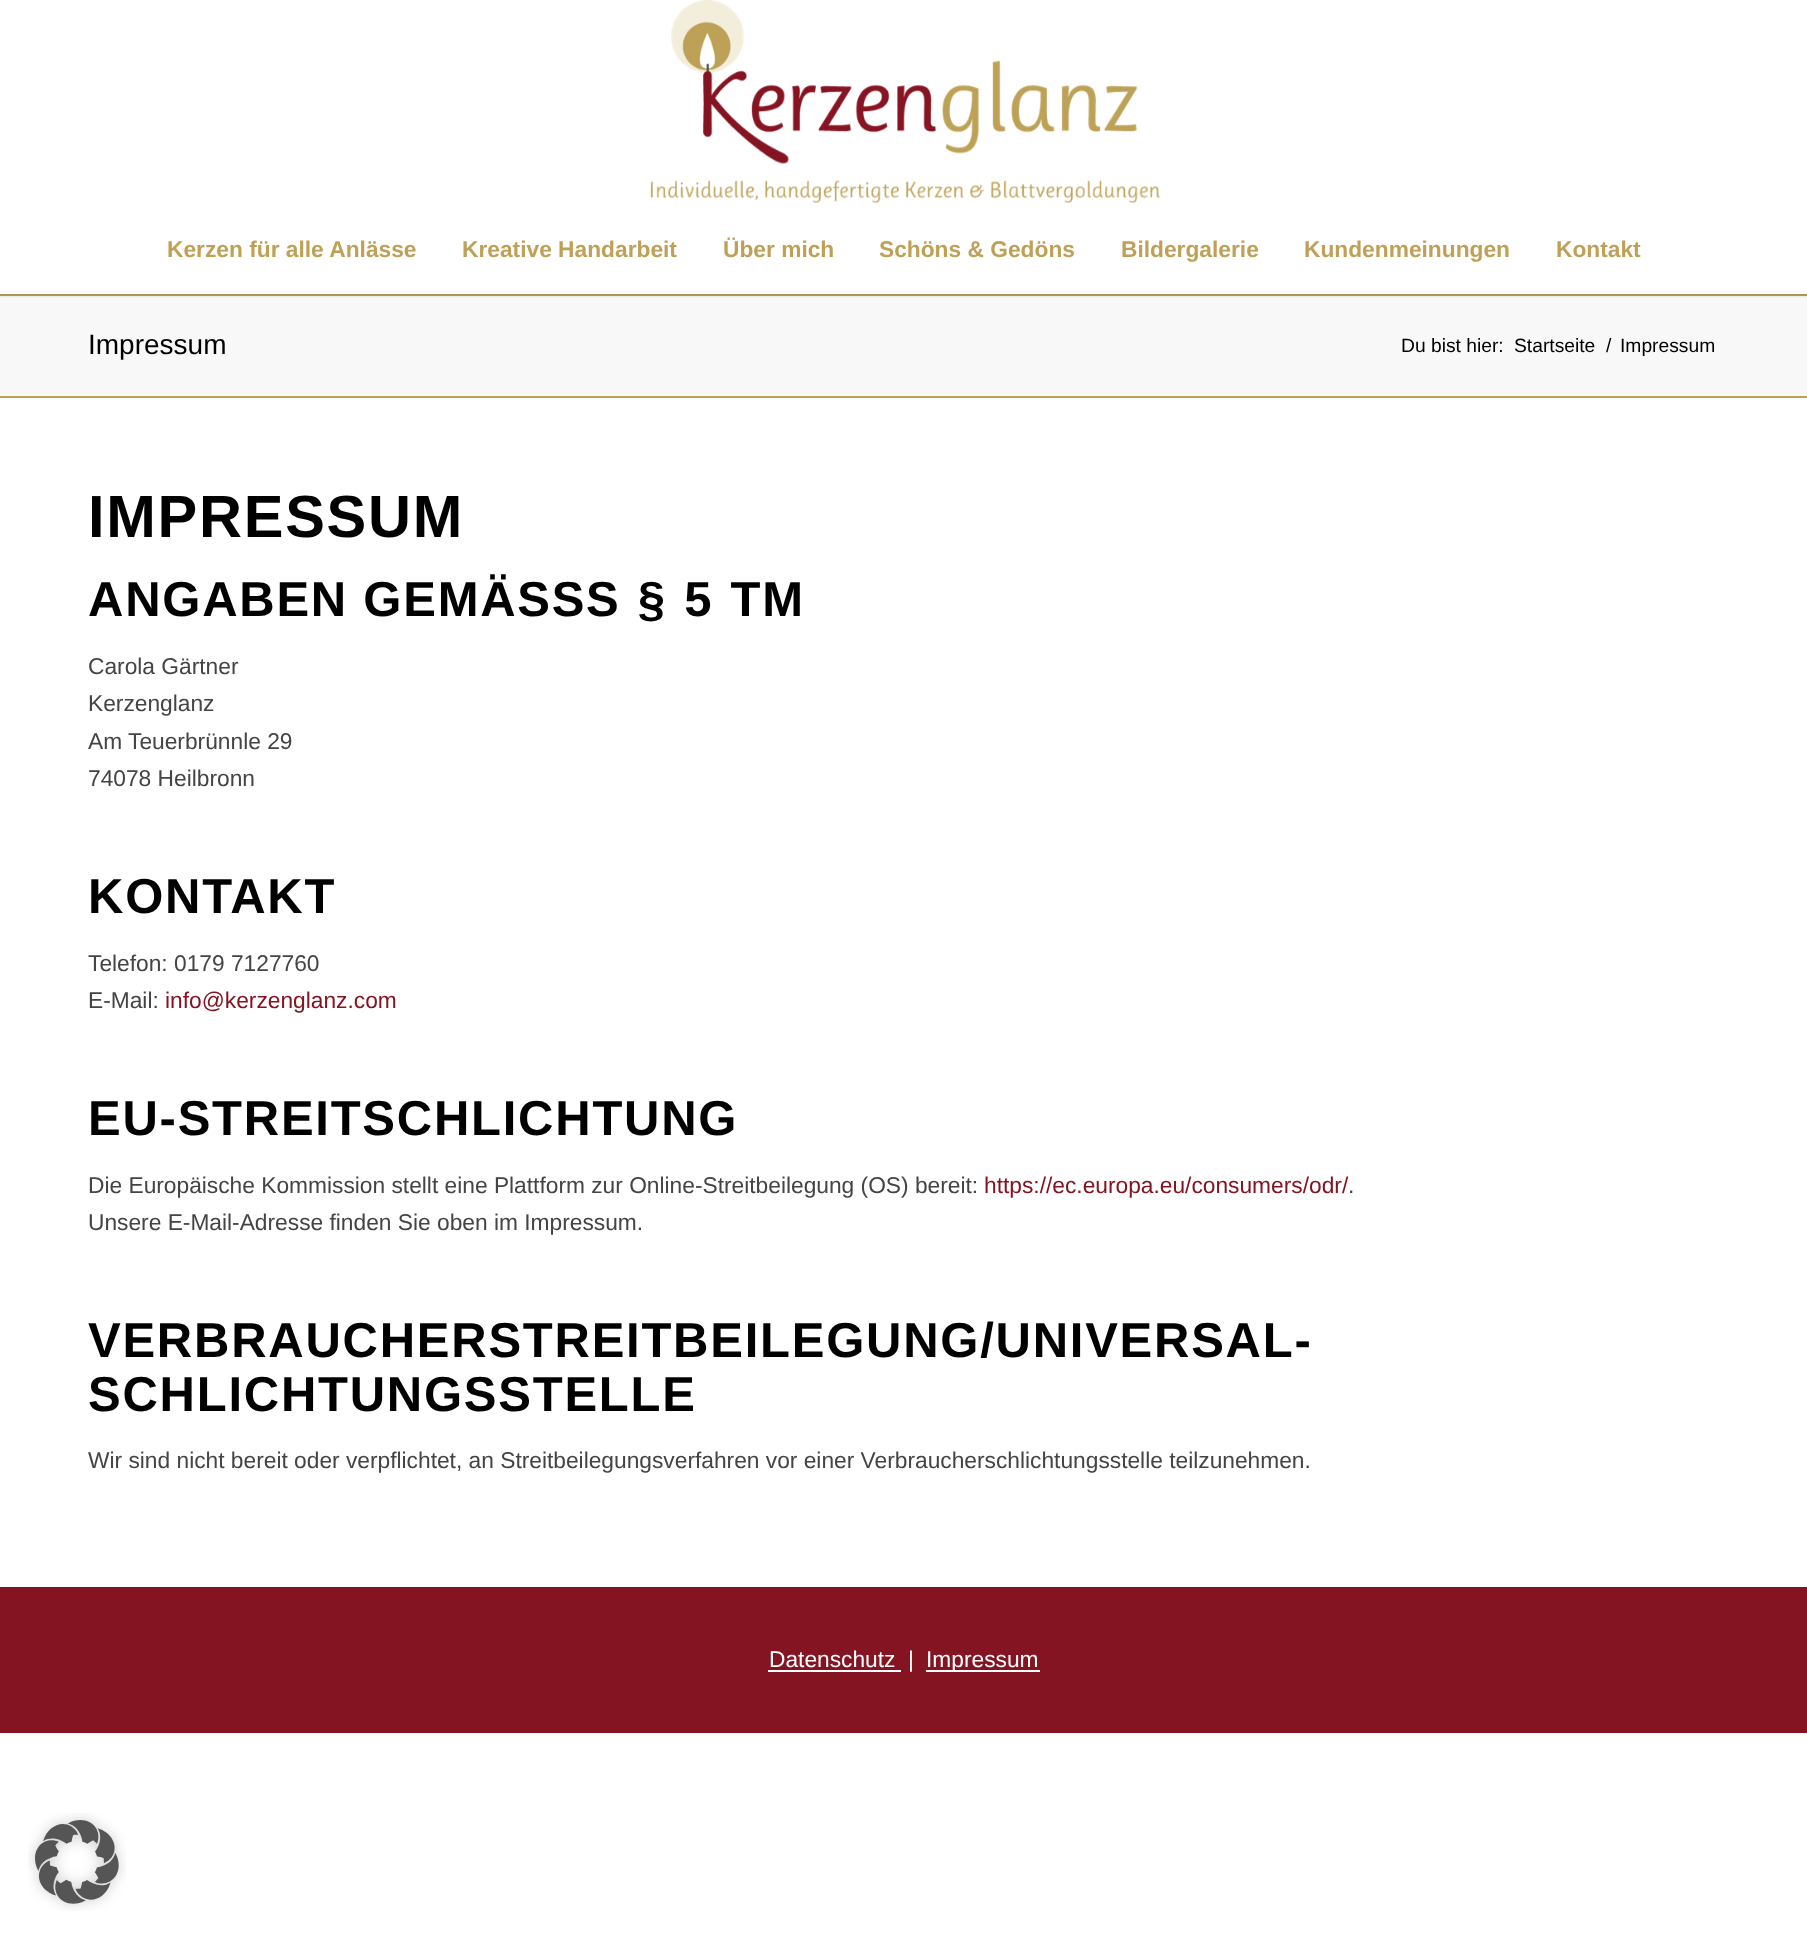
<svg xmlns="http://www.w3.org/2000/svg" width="1807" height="1939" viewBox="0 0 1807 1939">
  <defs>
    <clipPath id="clip1"><rect x="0" y="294" width="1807" height="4"/></clipPath>
  </defs>
  <rect width="100%" height="100%" fill="rgb(255,255,255)"/>
  <rect x="0" y="296" width="1807" height="100" fill="rgb(248,248,248)"/>
  <rect x="0" y="294" width="1807" height="2" fill="rgb(190,161,87)"/>
  <g clip-path="url(#clip1)">
    <rect x="-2" y="-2" width="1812" height="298" fill="rgba(0,0,0,0.1)" filter="blur(2px)"/>
  </g>
  <image x="650" y="0" width="510" height="204" href="pic1.png"/>
  <g font-family="Liberation Sans" font-size="22.75" font-weight="bold" fill="rgb(190,161,87)">
    <text x="167" y="257">Kerzen für alle Anlässe</text>
    <text x="462" y="257">Kreative Handarbeit</text>
    <text x="723" y="257">Über mich</text>
    <text x="879" y="257">Schöns &amp; Gedöns</text>
    <text x="1121" y="257">Bildergalerie</text>
    <text x="1304" y="257">Kundenmeinungen</text>
    <text x="1556" y="257">Kontakt</text>
  </g>
  <text x="88" y="354" font-family="Liberation Sans" font-size="28" fill="rgb(0,0,0)">Impressum</text>
  <g font-family="Liberation Sans" font-size="19.25" fill="rgb(0,0,0)">
    <text x="1401" y="352">Du bist hier:</text>
    <text x="1514" y="352">Startseite</text>
    <text x="1606" y="352">/</text>
    <text x="1620" y="352">Impressum</text>
  </g>
  <rect x="0" y="396" width="1807" height="2" fill="rgb(190,161,87)"/>
  <text x="88" y="537" font-family="Liberation Sans" font-size="59.5" font-weight="bold" letter-spacing="1.75" fill="rgb(0,0,0)">IMPRESSUM</text>
  <g font-family="Liberation Sans" font-size="49" font-weight="bold" letter-spacing="1.75" fill="rgb(0,0,0)">
    <text x="88" y="616">ANGABEN GEMÄSS</text>
    <text x="586" y="616" word-spacing="2">S § 5 TM</text>
  </g>
  <g font-family="Liberation Sans" font-size="22.75" fill="rgb(68,68,68)">
    <text>
      <tspan x="88" y="674">Carola Gärtner</tspan>
      <tspan x="88" y="711">Kerzenglanz</tspan>
      <tspan x="88" y="749">Am Teuerbrünnle 29</tspan>
      <tspan x="88" y="786">74078 Heilbronn</tspan>
    </text>
  </g>
  <text x="88" y="913" font-family="Liberation Sans" font-size="49" font-weight="bold" letter-spacing="1.75" fill="rgb(0,0,0)">KONTAKT</text>
  <g font-family="Liberation Sans" font-size="22.75" fill="rgb(68,68,68)">
    <text>
      <tspan x="88" y="971">Telefon: 0179 7127760</tspan>
      <tspan x="88" y="1008">E-Mail:</tspan>
    </text>
  </g>
  <text x="165" y="1008" font-family="Liberation Sans" font-size="22.75" fill="rgb(133,20,35)">info@kerzenglanz.com</text>
  <text x="88" y="1135" font-family="Liberation Sans" font-size="49" font-weight="bold" letter-spacing="1.75" fill="rgb(0,0,0)">EU-STREITSCHLICHTUNG</text>
  <text x="88" y="1193" font-family="Liberation Sans" font-size="22.75" fill="rgb(68,68,68)">Die Europäische Kommission stellt eine Plattform zur Online-Streitbeilegung (OS) bereit:</text>
  <text x="984" y="1193" font-family="Liberation Sans" font-size="22.75" fill="rgb(133,20,35)">https://ec.europa.eu/consumers/odr/</text>
  <g font-family="Liberation Sans" font-size="22.75" fill="rgb(68,68,68)">
    <text x="1348" y="1193">.</text>
    <text x="88" y="1230">Unsere E-Mail-Adresse finden Sie oben im Impressum.</text>
  </g>
  <g font-family="Liberation Sans" font-size="49" font-weight="bold" letter-spacing="1.75" fill="rgb(0,0,0)">
    <text>
      <tspan x="88" y="1357">VERBRAUCHERSTREITBEILEGUNG/UNIVERSAL-</tspan>
      <tspan x="88" y="1411">SCHLICHTUNGSSTELLE</tspan>
    </text>
  </g>
  <text x="88" y="1468" font-family="Liberation Sans" font-size="22.75" fill="rgb(68,68,68)">Wir sind nicht bereit oder verpflichtet, an Streitbeilegungsverfahren vor einer Verbraucherschlichtungsstelle teilzunehmen.</text>
  <rect x="0" y="1587" width="1807" height="146" fill="rgb(133,20,35)"/>
  <text x="769" y="1667" font-family="Liberation Sans" font-size="22.75" fill="rgb(255,255,255)">Datenschutz</text>
  <rect x="768" y="1670" width="133" height="2" fill="rgb(255,255,255)"/>
  <text x="908" y="1667" font-family="Liberation Sans" font-size="22.75" fill="rgb(255,255,255)">|</text>
  <rect x="926" y="1670" width="114" height="2" fill="rgb(255,255,255)"/>
  <text x="926" y="1667" font-family="Liberation Sans" font-size="22.75" fill="rgb(255,255,255)">Impressum</text>
  <image x="28" y="1813" width="98" height="98" href="pic2.png"/>
</svg>
